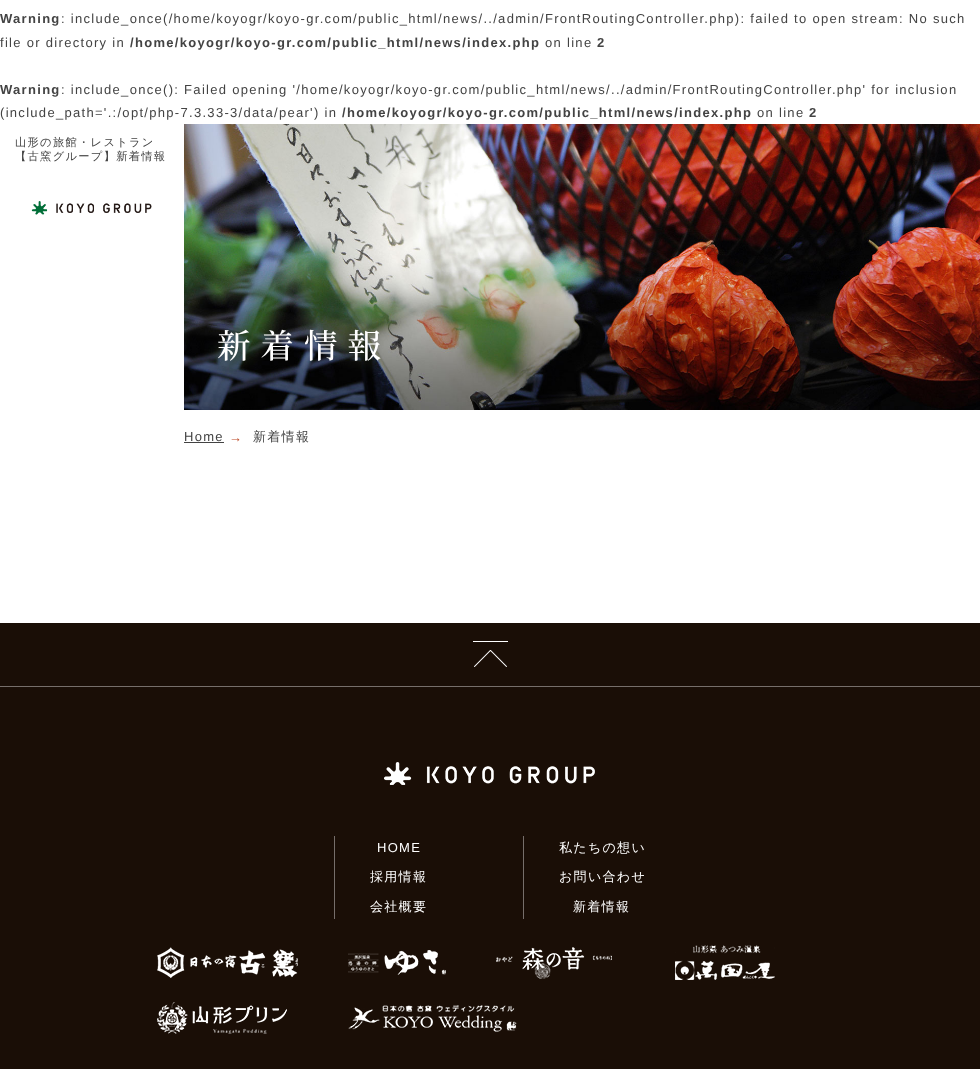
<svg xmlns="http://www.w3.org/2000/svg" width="980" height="1069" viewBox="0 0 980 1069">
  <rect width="100%" height="100%" fill="rgb(255,255,255)"/>
  <text x="0" y="23" font-family="Liberation Sans" font-size="13" font-weight="bold" letter-spacing="1.3" fill="rgb(67,67,67)">Warning</text>
  <g font-family="Liberation Sans" font-size="13" letter-spacing="1.3" fill="rgb(67,67,67)">
    <text x="61" y="23">: include_once(/home/koyogr/koyo-gr.com/public_html/news/../admin/FrontRoutingController.php): failed to open stream: No such</text>
    <text x="0" y="47">file or directory in</text>
  </g>
  <text x="130" y="47" font-family="Liberation Sans" font-size="13" font-weight="bold" letter-spacing="1.3" fill="rgb(67,67,67)">/home/koyogr/koyo-gr.com/public_html/news/index.php</text>
  <text x="545" y="47" font-family="Liberation Sans" font-size="13" letter-spacing="1.3" fill="rgb(67,67,67)">on line</text>
  <g font-family="Liberation Sans" font-size="13" font-weight="bold" letter-spacing="1.3" fill="rgb(67,67,67)">
    <text x="597" y="47">2</text>
    <text x="0" y="94">Warning</text>
  </g>
  <g font-family="Liberation Sans" font-size="13" letter-spacing="1.3" fill="rgb(67,67,67)">
    <text x="61" y="94">: include_once(): Failed opening '/home/koyogr/koyo-gr.com/public_html/news/../admin/FrontRoutingController.php' for inclusion</text>
    <text x="0" y="117">(include_path='.:/opt/php-7.3.33-3/data/pear') in</text>
  </g>
  <text x="342" y="117" font-family="Liberation Sans" font-size="13" font-weight="bold" letter-spacing="1.3" fill="rgb(67,67,67)">/home/koyogr/koyo-gr.com/public_html/news/index.php</text>
  <text x="757" y="117" font-family="Liberation Sans" font-size="13" letter-spacing="1.3" fill="rgb(67,67,67)">on line</text>
  <text x="809" y="117" font-family="Liberation Sans" font-size="13" font-weight="bold" letter-spacing="1.3" fill="rgb(67,67,67)">2</text>
  <g font-family="WenQuanYi Zen Hei" font-size="11.25" font-weight="500" letter-spacing="1.3" fill="rgb(67,67,67)">
    <text>
      <tspan x="15" y="146">山形の旅館・レストラン</tspan>
      <tspan x="15" y="160">【古窯グループ】新着情報</tspan>
    </text>
  </g>
  <image x="31" y="201" width="121" height="14" href="pic1.png"/>
  <image x="184" y="124" width="796" height="286" href="pic2.png"/>
  <text x="217" y="358" font-family="Noto Serif JP" font-size="33.5" font-weight="200" letter-spacing="10" fill="rgb(255,255,255)">新着情報</text>
  <text x="184" y="441" font-family="Liberation Sans" font-size="13" letter-spacing="1.3" fill="rgb(67,67,67)">Home</text>
  <rect x="184" y="442" width="40" height="1" fill="rgb(67,67,67)"/>
  <text x="229" y="442" font-family="Liberation Sans" font-size="13" letter-spacing="1.3" fill="rgb(190,74,39)">→</text>
  <text x="253" y="441" font-family="WenQuanYi Zen Hei" font-size="13" font-weight="500" letter-spacing="1.3" fill="rgb(67,67,67)">新着情報</text>
  <rect x="0" y="623" width="980" height="446" fill="rgb(26,14,6)"/>
  <rect x="0" y="686" width="980" height="1" fill="rgb(118,110,106)"/>
  <image x="473" y="641" width="35" height="26" href="pic3.png"/>
  <image x="384" y="762" width="211" height="23" href="pic4.png"/>
  <rect x="334" y="836" width="1" height="83" fill="rgb(118,110,106)"/>
  <text x="377" y="852" font-family="Liberation Sans" font-size="13" letter-spacing="1.3" fill="rgb(255,255,255)">HOME</text>
  <g font-family="WenQuanYi Zen Hei" font-size="13" font-weight="500" letter-spacing="1.3" fill="rgb(255,255,255)">
    <text x="370" y="881">採用情報</text>
    <text x="370" y="911">会社概要</text>
  </g>
  <rect x="523" y="836" width="1" height="83" fill="rgb(118,110,106)"/>
  <g font-family="WenQuanYi Zen Hei" font-size="13" font-weight="500" letter-spacing="1.3" fill="rgb(255,255,255)">
    <text x="559" y="852">私たちの想い</text>
    <text x="559" y="881">お問い合わせ</text>
    <text x="573" y="911">新着情報</text>
  </g>
  <image x="157" y="947" width="141" height="31" href="pic5.png"/>
  <image x="348" y="950" width="98" height="25" href="pic6.png"/>
  <image x="496" y="947" width="116" height="32" href="pic7.png"/>
  <image x="675" y="945" width="100" height="35" href="pic8.png"/>
  <image x="157" y="1002" width="130" height="32" href="pic9.png"/>
  <image x="348" y="1005" width="169" height="27" href="pic10.png"/>
</svg>
